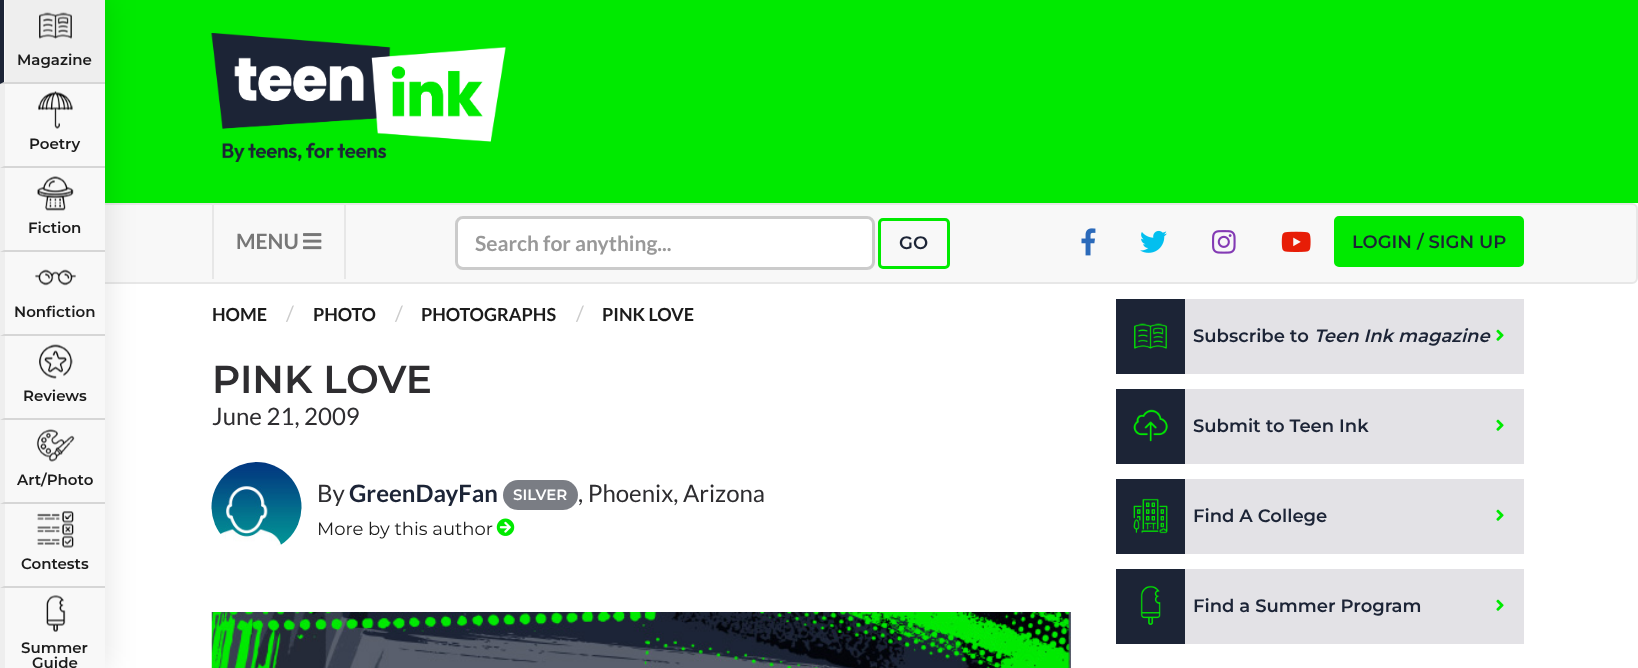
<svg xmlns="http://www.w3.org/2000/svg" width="1638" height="668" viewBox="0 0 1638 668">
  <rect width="100%" height="100%" fill="rgb(255,255,255)"/>
  <rect x="105" y="0" width="1533" height="203" fill="rgb(0,234,0)"/>
  <image x="211" y="33" width="295" height="129" href="pic1.png"/>
  <rect x="1" y="204" width="1636" height="79" rx="5" fill="rgb(248,248,248)" stroke="rgb(231,231,231)" stroke-width="2"/>
  <rect x="-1" y="-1" width="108" height="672" fill="rgba(0,0,0,0.1)" filter="blur(15px)"/>
  <rect x="0" y="0" width="105" height="668" fill="rgb(248,248,248)"/>
  <rect x="5" y="0" width="100" height="82" fill="rgb(238,238,238)"/>
  <path d="M105 84H0L4 82H105Z" fill="rgb(214,214,214)"/>
  <path d="M0 84V0H4V82Z" fill="rgb(28,36,54)"/>
  <image x="39" y="12" width="33" height="27" href="pic2.png"/>
  <text x="17" y="65" font-family="Montserrat" font-size="15" font-weight="600" fill="rgb(27,27,27)">Magazine</text>
  <rect x="0" y="84" width="5" height="420" fill="rgb(238,238,238)"/>
  <path d="M105 168H0L4 166H105Z" fill="rgb(214,214,214)"/>
  <image x="38" y="91" width="35" height="38" href="pic3.png"/>
  <text x="29" y="149" font-family="Montserrat" font-size="15" font-weight="600" fill="rgb(27,27,27)">Poetry</text>
  <path d="M105 252H0L4 250H105Z" fill="rgb(214,214,214)"/>
  <image x="37" y="176" width="37" height="35" href="pic4.png"/>
  <text x="28" y="233" font-family="Montserrat" font-size="15" font-weight="600" fill="rgb(27,27,27)">Fiction</text>
  <path d="M105 336H0L4 334H105Z" fill="rgb(214,214,214)"/>
  <image x="35" y="269" width="41" height="17" href="pic5.png"/>
  <text x="14" y="317" font-family="Montserrat" font-size="15" font-weight="600" fill="rgb(27,27,27)">Nonfiction</text>
  <path d="M105 420H0L4 418H105Z" fill="rgb(214,214,214)"/>
  <image x="39" y="344" width="34" height="35" href="pic6.png"/>
  <text x="23" y="401" font-family="Montserrat" font-size="15" font-weight="600" fill="rgb(27,27,27)">Reviews</text>
  <path d="M105 504H0L4 502H105Z" fill="rgb(214,214,214)"/>
  <image x="36" y="429" width="39" height="33" href="pic7.png"/>
  <text x="17" y="485" font-family="Montserrat" font-size="15" font-weight="600" fill="rgb(27,27,27)">Art/Photo</text>
  <rect x="0" y="504" width="5" height="164" fill="rgb(238,238,238)"/>
  <path d="M105 588H0L4 586H105Z" fill="rgb(214,214,214)"/>
  <image x="37" y="511" width="37" height="37" href="pic8.png"/>
  <text x="21" y="569" font-family="Montserrat" font-size="15" font-weight="600" fill="rgb(27,27,27)">Contests</text>
  <image x="46" y="595" width="20" height="37" href="pic9.png"/>
  <g font-family="Montserrat" font-size="15" font-weight="600" fill="rgb(27,27,27)">
    <text x="21" y="653">Summer</text>
    <text x="32" y="668">Guide</text>
  </g>
  <text x="212" y="321" font-family="Lato" font-size="18" font-weight="bold" fill="rgb(27,27,27)">HOME</text>
  <text x="286" y="321" font-family="Lato" font-size="21" fill="rgb(204,204,204)">/</text>
  <text x="313" y="321" font-family="Lato" font-size="18" font-weight="bold" fill="rgb(27,27,27)">PHOTO</text>
  <text x="395" y="321" font-family="Lato" font-size="21" fill="rgb(204,204,204)">/</text>
  <text x="421" y="321" font-family="Lato" font-size="18" font-weight="bold" fill="rgb(27,27,27)">PHOTOGRAPHS</text>
  <text x="576" y="321" font-family="Lato" font-size="21" fill="rgb(204,204,204)">/</text>
  <text x="602" y="321" font-family="Lato" font-size="18" font-weight="bold" fill="rgb(27,27,27)">PINK LOVE</text>
  <text x="212" y="393" font-family="Montserrat" font-size="39" font-weight="600" fill="rgb(46,45,48)">PINK LOVE</text>
  <text x="212" y="425" font-family="Lato" font-size="24" fill="rgb(46,45,48)">June 21, 2009</text>
  <image x="211" y="462" width="91" height="84" href="pic10.png"/>
  <text x="317" y="502" font-family="Lato" font-size="24" fill="rgb(46,45,48)">By</text>
  <text x="349" y="502" font-family="Lato" font-size="24" font-weight="bold" fill="rgb(28,36,54)">GreenDayFan</text>
  <rect x="503" y="480" width="75" height="30" rx="15" fill="rgb(122,125,132)"/>
  <text x="513" y="500" font-family="Montserrat" font-size="15" font-weight="600" fill="rgb(255,255,255)">SILVER</text>
  <text x="578" y="502" font-family="Lato" font-size="24" fill="rgb(46,45,48)">, Phoenix, Arizona</text>
  <text x="317" y="535" font-family="Montserrat" font-size="18" fill="rgb(27,27,27)">More by this author</text>
  <image x="496" y="518" width="19" height="18" href="pic11.png"/>
  <image x="211" y="612" width="860" height="56" href="pic12.png"/>
  <rect x="1185" y="299" width="339" height="75" fill="rgb(227,226,230)"/>
  <rect x="1116" y="299" width="69" height="75" fill="rgb(28,36,54)"/>
  <image x="1134" y="323" width="33" height="26" href="pic13.png"/>
  <text x="1193" y="342" font-family="Montserrat" font-size="18" font-weight="600" fill="rgb(28,36,54)">Subscribe to</text>
  <text x="1314" y="342" font-family="Montserrat" font-size="18" font-weight="600" font-style="italic" fill="rgb(28,36,54)">Teen Ink magazine</text>
  <image x="1496" y="329" width="8" height="12" href="pic14.png"/>
  <rect x="1185" y="389" width="339" height="75" fill="rgb(227,226,230)"/>
  <rect x="1116" y="389" width="69" height="75" fill="rgb(28,36,54)"/>
  <image x="1133" y="409" width="35" height="33" href="pic15.png"/>
  <text x="1193" y="432" font-family="Montserrat" font-size="18" font-weight="600" fill="rgb(28,36,54)">Submit to Teen Ink</text>
  <image x="1496" y="419" width="8" height="12" href="pic14.png"/>
  <rect x="1185" y="479" width="339" height="75" fill="rgb(227,226,230)"/>
  <rect x="1116" y="479" width="69" height="75" fill="rgb(28,36,54)"/>
  <image x="1133" y="498" width="35" height="36" href="pic16.png"/>
  <text x="1193" y="522" font-family="Montserrat" font-size="18" font-weight="600" fill="rgb(28,36,54)">Find A College</text>
  <image x="1496" y="509" width="8" height="12" href="pic14.png"/>
  <rect x="1185" y="569" width="339" height="75" fill="rgb(227,226,230)"/>
  <rect x="1116" y="569" width="69" height="75" fill="rgb(28,36,54)"/>
  <image x="1140" y="585" width="21" height="40" href="pic17.png"/>
  <text x="1193" y="612" font-family="Montserrat" font-size="18" font-weight="600" fill="rgb(28,36,54)">Find a Summer Program</text>
  <image x="1496" y="599" width="8" height="12" href="pic14.png"/>
  <rect x="344" y="204" width="2" height="75" fill="rgb(231,231,231)"/>
  <rect x="212" y="204" width="2" height="75" fill="rgb(231,231,231)"/>
  <text x="236" y="249" font-family="Lato" font-size="21" font-weight="bold" fill="rgb(119,119,119)">MENU</text>
  <image x="303" y="233" width="19" height="17" href="pic18.png"/>
  <rect x="456.5" y="217.5" width="417" height="51" rx="6.5" fill="rgb(255,255,255)" stroke="rgb(203,203,203)" stroke-width="3"/>
  <text x="475" y="251" font-family="Lato" font-size="21" font-weight="bold" fill="rgb(153,153,153)">Search for anything...</text>
  <rect x="879.5" y="219.5" width="69" height="48" rx="3.5" fill="none" stroke="rgb(0,234,0)" stroke-width="3"/>
  <text x="899" y="249" font-family="Montserrat" font-size="18" font-weight="600" fill="rgb(28,36,54)">GO</text>
  <image x="1081" y="228" width="15" height="28" href="pic19.png"/>
  <image x="1140" y="230" width="27" height="23" href="pic20.png"/>
  <image x="1212" y="230" width="24" height="24" href="pic21.png"/>
  <image x="1281" y="231" width="30" height="21" href="pic22.png"/>
  <rect x="1335.5" y="217.5" width="187" height="48" rx="3.5" fill="rgb(0,234,0)" stroke="rgb(0,234,0)" stroke-width="3"/>
  <text x="1352" y="248" font-family="Montserrat" font-size="18" font-weight="600" fill="rgb(28,36,54)">LOGIN / SIGN UP</text>
</svg>
